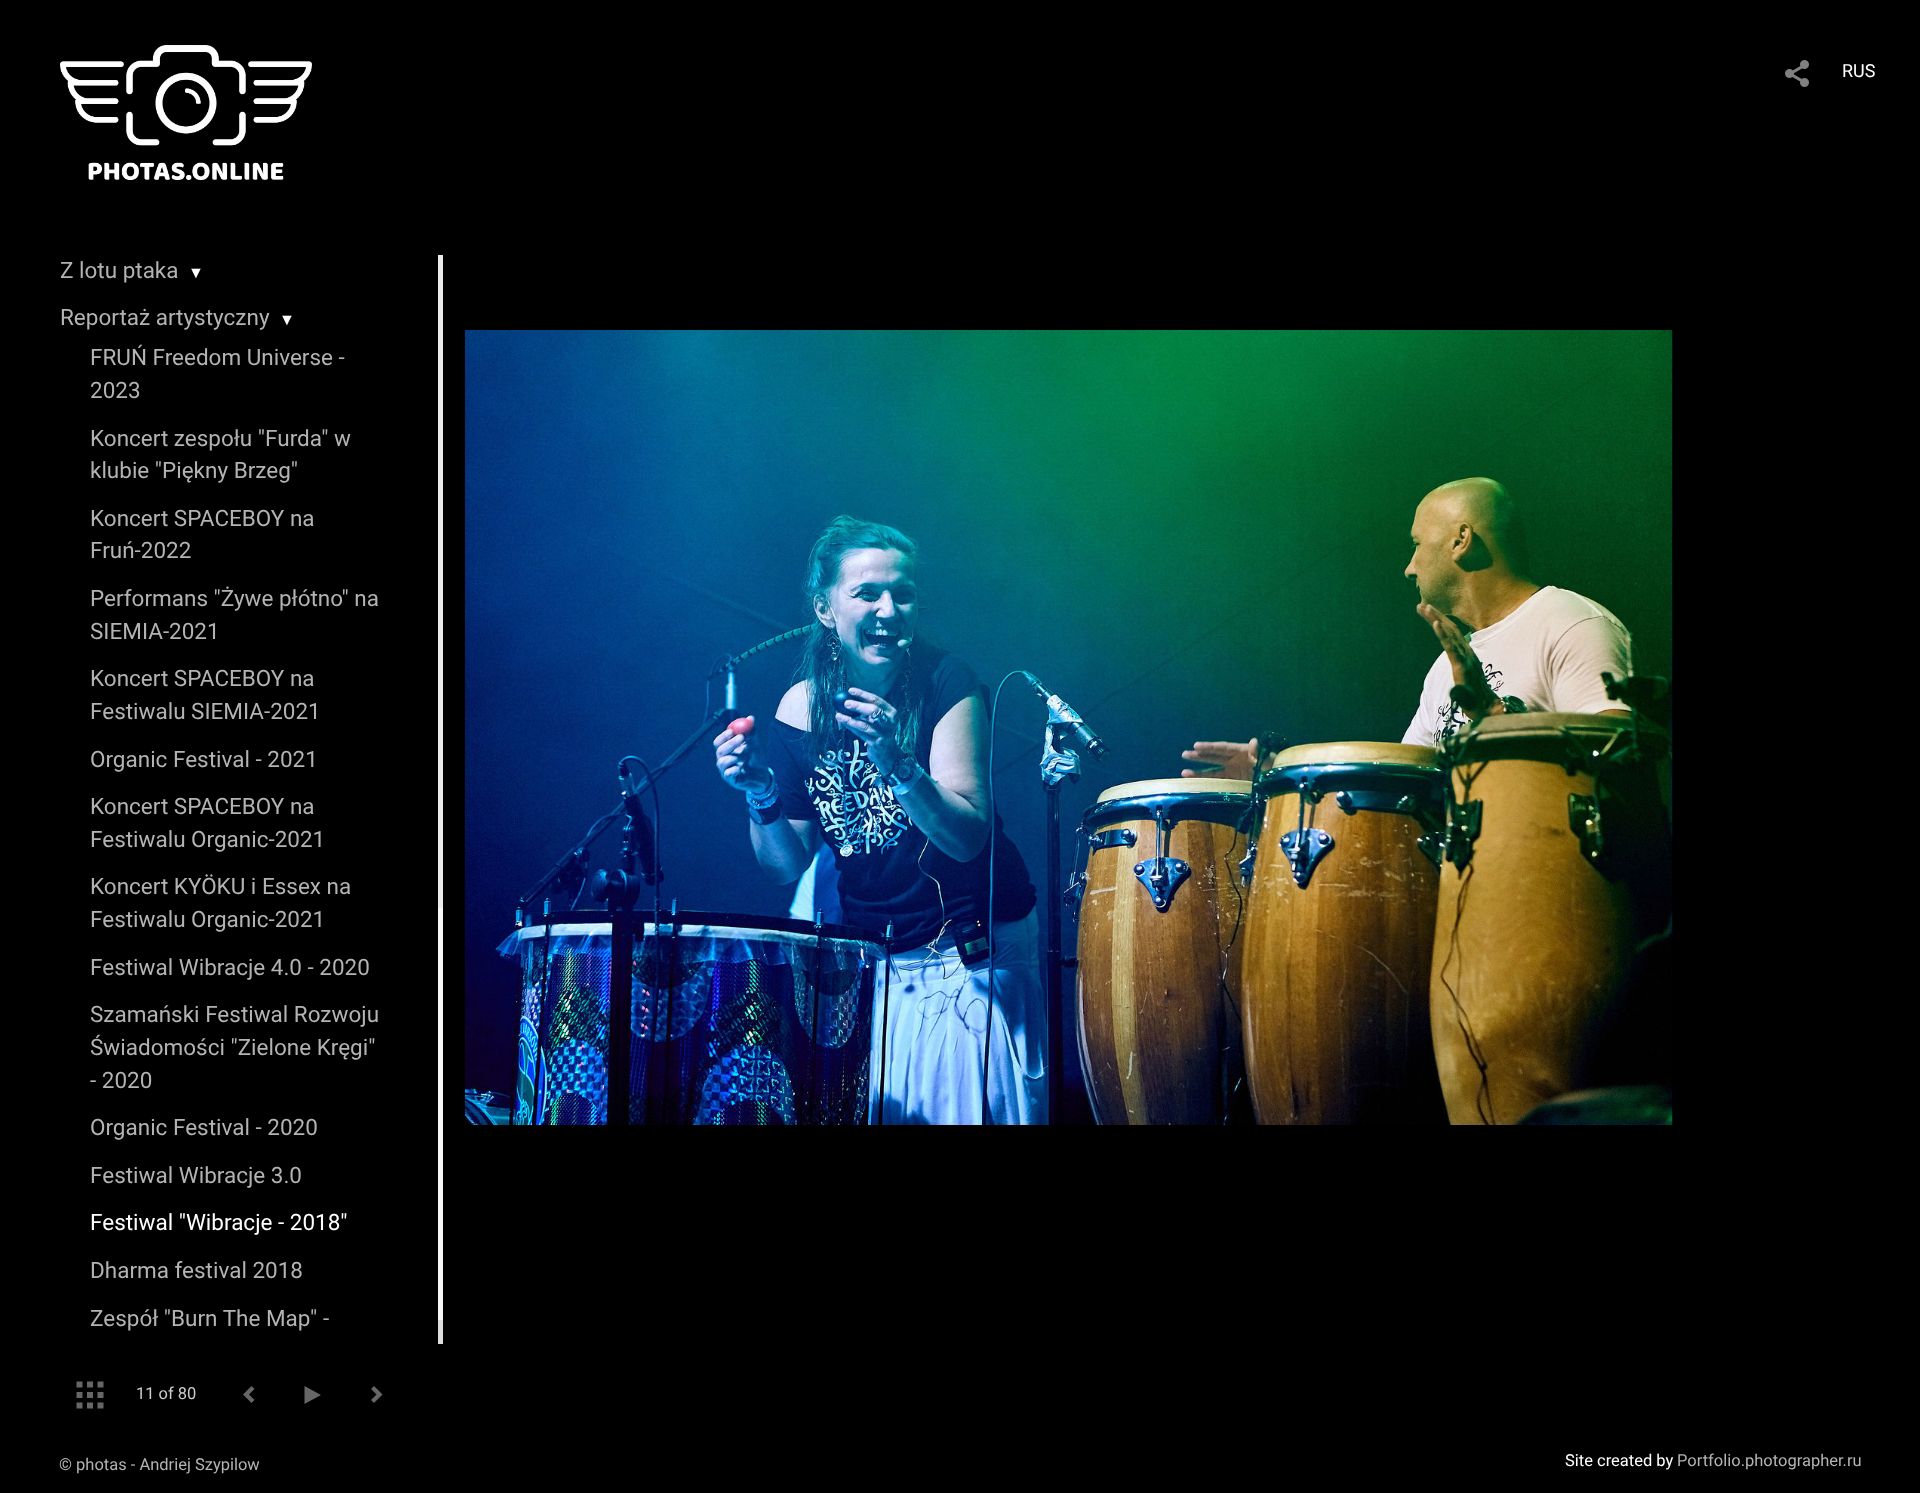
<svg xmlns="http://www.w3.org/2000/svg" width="1920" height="1493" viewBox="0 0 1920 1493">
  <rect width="100%" height="100%" fill="rgb(0,0,0)"/>
  <image x="1785" y="60" width="24" height="27" href="pic1.png"/>
  <text x="1842" y="77" font-family="Roboto" font-size="18" fill="rgb(255,255,255)">RUS</text>
  <image x="465" y="330" width="1208" height="795" href="pic2.png"/>
  <image x="60" y="45" width="252" height="135" href="pic3.png"/>
  <text x="60" y="278" font-family="Roboto" font-size="22.5" fill="rgb(179,179,179)">Z lotu ptaka</text>
  <text x="188" y="278" font-family="Liberation Serif" font-size="16" fill="rgb(255,255,255)">▼</text>
  <text x="60" y="325" font-family="Roboto" font-size="22.5" fill="rgb(179,179,179)">Reportaż artystyczny</text>
  <text x="279" y="325" font-family="Liberation Serif" font-size="16" fill="rgb(255,255,255)">▼</text>
  <g font-family="Roboto" font-size="22.5" fill="rgb(179,179,179)">
    <text>
      <tspan x="90" y="365">FRUŃ Freedom Universe -</tspan>
      <tspan x="90" y="398">2023</tspan>
    </text>
    <text>
      <tspan x="90" y="446">Koncert zespołu "Furda" w</tspan>
      <tspan x="90" y="478">klubie "Piękny Brzeg"</tspan>
    </text>
    <text>
      <tspan x="90" y="526">Koncert SPACEBOY na</tspan>
      <tspan x="90" y="558">Fruń-2022</tspan>
    </text>
    <text>
      <tspan x="90" y="606">Performans "Żywe płótno" na</tspan>
      <tspan x="90" y="639">SIEMIA-2021</tspan>
    </text>
    <text>
      <tspan x="90" y="686">Koncert SPACEBOY na</tspan>
      <tspan x="90" y="719">Festiwalu SIEMIA-2021</tspan>
    </text>
    <text x="90" y="767">Organic Festival - 2021</text>
    <text>
      <tspan x="90" y="814">Koncert SPACEBOY na</tspan>
      <tspan x="90" y="847">Festiwalu Organic-2021</tspan>
    </text>
    <text>
      <tspan x="90" y="894">Koncert KYÖKU i Essex na</tspan>
      <tspan x="90" y="927">Festiwalu Organic-2021</tspan>
    </text>
    <text x="90" y="975">Festiwal Wibracje 4.0 - 2020</text>
    <text>
      <tspan x="90" y="1022">Szamański Festiwal Rozwoju</tspan>
      <tspan x="90" y="1055">Świadomości "Zielone Kręgi"</tspan>
      <tspan x="90" y="1088">- 2020</tspan>
    </text>
    <text x="90" y="1135">Organic Festival - 2020</text>
    <text x="90" y="1183">Festiwal Wibracje 3.0</text>
  </g>
  <text x="90" y="1230" font-family="Roboto" font-size="22.5" fill="rgb(255,255,255)">Festiwal "Wibracje - 2018"</text>
  <g font-family="Roboto" font-size="22.5" fill="rgb(179,179,179)">
    <text x="90" y="1278">Dharma festival 2018</text>
    <text x="90" y="1326">Zespół "Burn The Map" -</text>
  </g>
  <rect x="438" y="255" width="5" height="653" fill="rgb(235,235,235)"/>
  <rect x="438" y="908" width="5" height="412" fill="rgb(248,248,248)"/>
  <rect x="438" y="1320" width="5" height="24" fill="rgb(221,221,221)"/>
  <image x="76" y="1381" width="28" height="28" href="pic4.png"/>
  <text x="136" y="1399" font-family="Roboto" font-size="16.5" fill="rgb(204,204,204)">11 of 80</text>
  <image x="243" y="1386" width="12" height="17" href="pic5.png"/>
  <path d="M321 1395L304.5 1404V1386Z" fill="rgb(102,102,102)"/>
  <image x="371" y="1386" width="12" height="17" href="pic6.png"/>
  <text x="59" y="1470" font-family="Roboto" font-size="16.5" fill="rgb(179,179,179)">© photas - Andriej Szypilow</text>
  <text x="1565" y="1466" font-family="Roboto" font-size="16.5" fill="rgb(255,255,255)">Site created by</text>
  <text x="1677" y="1466" font-family="Roboto" font-size="16.5" fill="rgb(179,179,179)">Portfolio.photographer.ru</text>
</svg>
